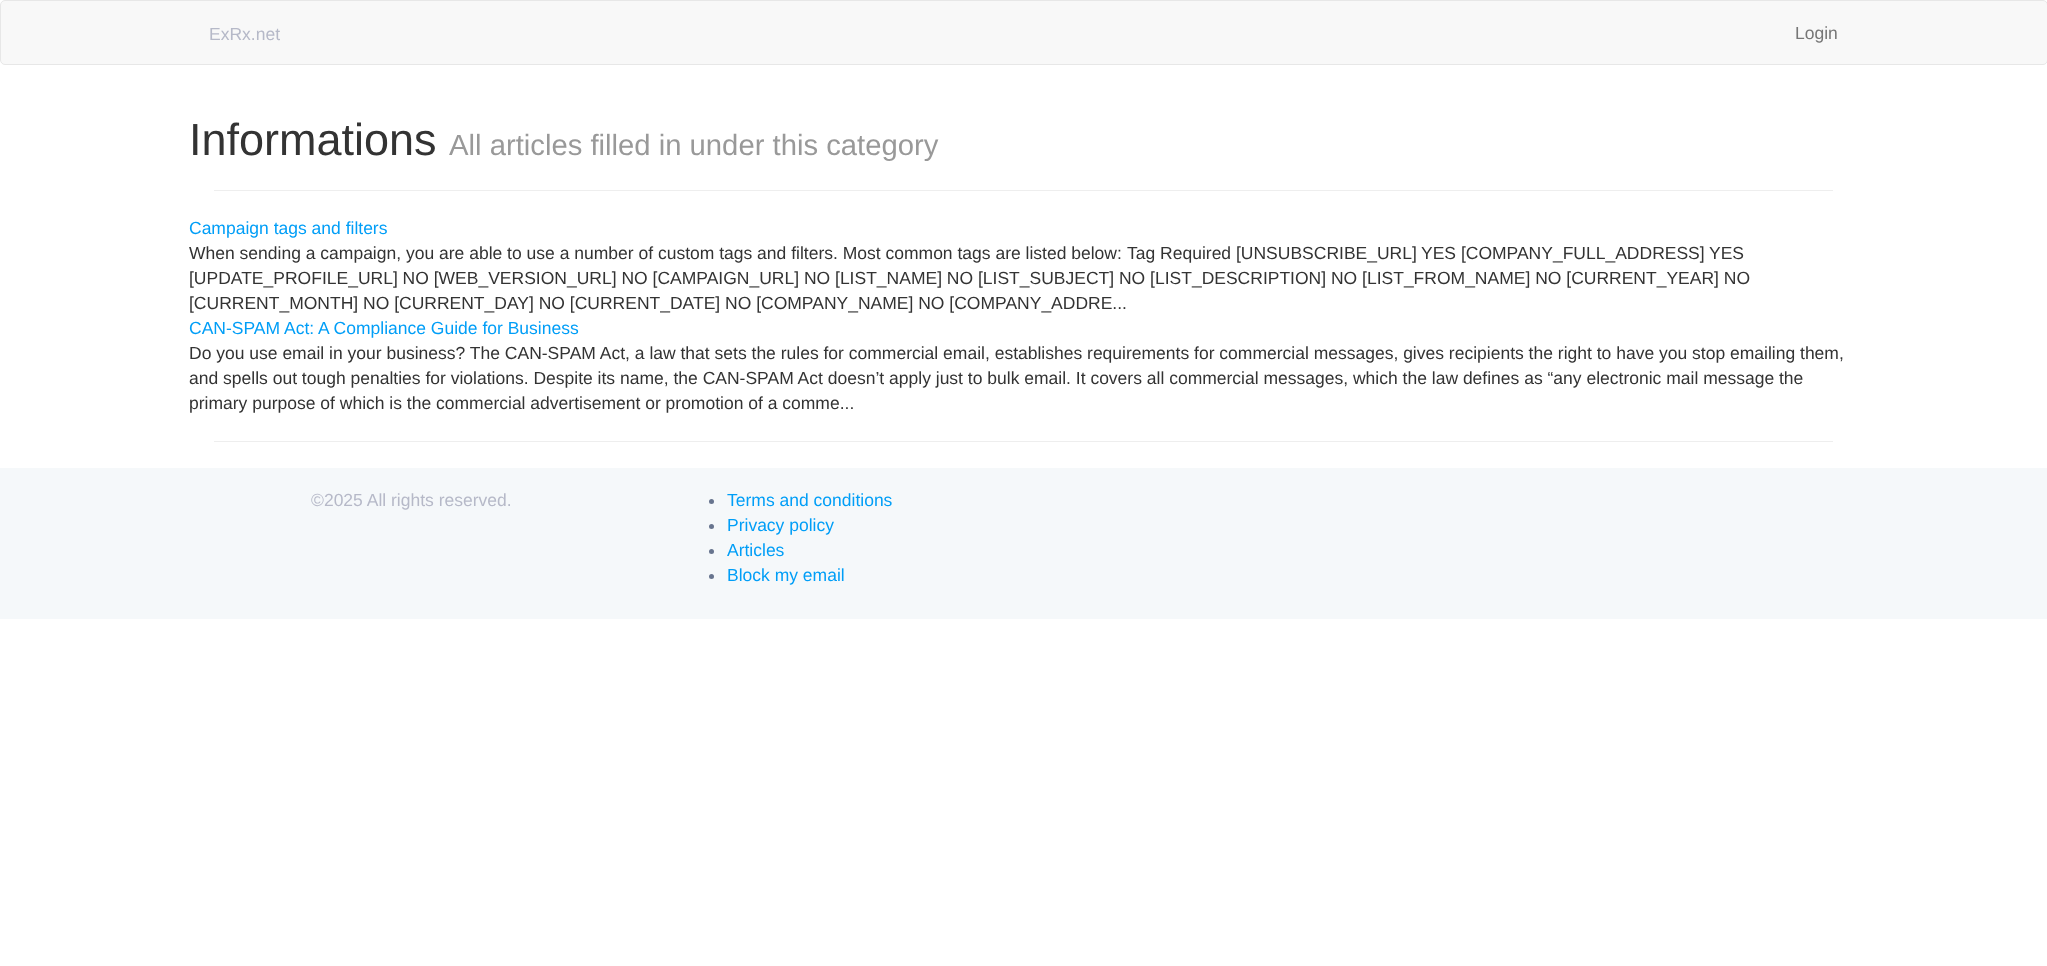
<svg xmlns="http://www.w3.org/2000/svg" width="2047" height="966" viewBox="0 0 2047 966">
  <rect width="100%" height="100%" fill="rgb(255,255,255)"/>
  <rect x="0.5" y="0.5" width="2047" height="64" rx="4.5" fill="rgb(248,248,248)" stroke="rgb(231,231,231)"/>
  <text x="209" y="40" font-family="Liberation Sans" font-size="17.5" fill="rgb(182,185,200)">ExRx.net</text>
  <text x="1795" y="39" font-family="Liberation Sans" font-size="17.5" fill="rgb(119,119,119)">Login</text>
  <text x="189" y="155" font-family="Liberation Sans" font-size="45" fill="rgb(51,51,51)">Informations</text>
  <text x="449" y="155" font-family="Liberation Sans" font-size="29.25" fill="rgb(153,153,153)">All articles filled in under this category</text>
  <rect x="214" y="190" width="1619" height="1" fill="rgb(238,238,238)"/>
  <text x="189" y="234" font-family="Liberation Sans" font-size="17.5" fill="rgb(0,158,247)">Campaign tags and filters</text>
  <g font-family="Liberation Sans" font-size="17.5" fill="rgb(51,51,51)">
    <text x="189" y="259">When sending a campaign, you are able to use a number of custom tags and filters. Most common tags are listed below:</text>
    <text x="1127" y="259">Tag Required [UNSUBSCRIBE_URL]</text>
    <text x="1421" y="259">YES [COMPANY_FULL_ADDRESS]</text>
    <text x="1709" y="259">YES</text>
    <text>
      <tspan x="189" y="284">[UPDATE_PROFILE_URL] NO [WEB_VERSION_URL] NO [CAMPAIGN_URL] NO [LIST_NAME] NO [LIST_SUBJECT] NO [LIST_DESCRIPTION] NO [LIST_FROM_NAME] NO [CURRENT_YEAR] NO</tspan>
      <tspan x="189" y="309">[CURRENT_MONTH] NO [CURRENT_DAY] NO [CURRENT_DATE] NO [COMPANY_NAME] NO [COMPANY_ADDRE...</tspan>
    </text>
  </g>
  <text x="189" y="334" font-family="Liberation Sans" font-size="17.5" fill="rgb(0,158,247)">CAN-SPAM Act: A Compliance Guide for Business</text>
  <g font-family="Liberation Sans" font-size="17.5" fill="rgb(51,51,51)">
    <text>
      <tspan x="189" y="359">Do you use email in your business? The CAN-SPAM Act, a law that sets the rules for commercial email, establishes requirements for commercial messages, gives recipients the right to have you stop emailing them,</tspan>
      <tspan x="189" y="384">and spells out tough penalties for violations. Despite its name, the CAN-SPAM Act doesn’t apply just to bulk email. It covers all commercial messages, which the law defines as “any electronic mail message the</tspan>
      <tspan x="189" y="409">primary purpose of which is the commercial advertisement or promotion of a comme...</tspan>
    </text>
  </g>
  <rect x="214" y="441" width="1619" height="1" fill="rgb(238,238,238)"/>
  <rect x="0" y="468" width="2047" height="151" fill="rgb(245,248,250)"/>
  <text x="311" y="506" font-family="Liberation Sans" font-size="17.5" fill="rgb(182,185,200)">©2025 All rights reserved.</text>
  <circle cx="711.5" cy="501.5" r="2.5" fill="rgb(103,116,142)"/>
  <text x="727" y="506" font-family="Liberation Sans" font-size="17.5" fill="rgb(0,158,247)">Terms and conditions</text>
  <circle cx="711.5" cy="526.5" r="2.5" fill="rgb(103,116,142)"/>
  <text x="727" y="531" font-family="Liberation Sans" font-size="17.5" fill="rgb(0,158,247)">Privacy policy</text>
  <circle cx="711.5" cy="551.5" r="2.5" fill="rgb(103,116,142)"/>
  <text x="727" y="556" font-family="Liberation Sans" font-size="17.5" fill="rgb(0,158,247)">Articles</text>
  <circle cx="711.5" cy="576.5" r="2.5" fill="rgb(103,116,142)"/>
  <text x="727" y="581" font-family="Liberation Sans" font-size="17.5" fill="rgb(0,158,247)">Block my email</text>
</svg>
